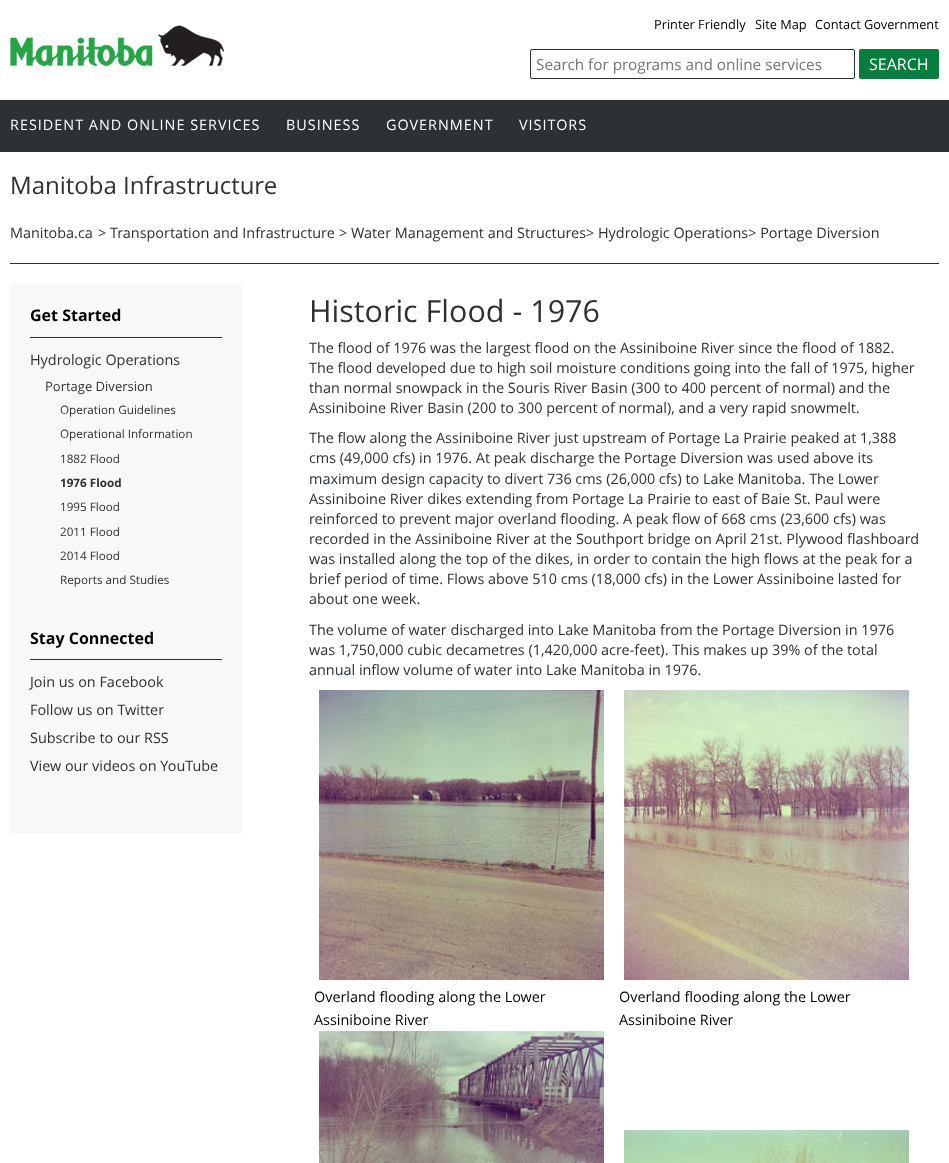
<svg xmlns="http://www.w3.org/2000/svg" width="949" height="1163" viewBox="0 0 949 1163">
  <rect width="100%" height="100%" fill="rgb(255,255,255)"/>
  <g font-family="Open Sans" font-size="12.75" fill="rgb(0,0,0)">
    <text x="654" y="29">Printer Friendly</text>
    <text x="755" y="29">Site Map</text>
    <text x="815" y="29">Contact Government</text>
  </g>
  <image x="10" y="25" width="214" height="41" href="pic1.png"/>
  <rect x="530.5" y="49.5" width="324" height="29" rx="1.5" fill="none" stroke="rgb(44,49,53)"/>
  <text x="536" y="70" font-family="Open Sans" font-size="15.3" fill="rgb(117,117,117)">Search for programs and online services</text>
  <rect x="859" y="49" width="80" height="30" rx="2" fill="rgb(5,125,62)"/>
  <text x="869" y="70" font-family="Open Sans" font-size="16" fill="rgb(255,255,255)">SEARCH</text>
  <rect x="0" y="100" width="949" height="52" fill="rgb(44,49,53)"/>
  <g font-family="Open Sans" font-size="14.4" letter-spacing="1" fill="rgb(255,255,255)">
    <text x="10" y="130">RESIDENT AND ONLINE SERVICES</text>
    <text x="286" y="130">BUSINESS</text>
    <text x="386" y="130">GOVERNMENT</text>
    <text x="519" y="130">VISITORS</text>
  </g>
  <text x="10" y="194" font-family="Open Sans" font-size="24" fill="rgb(44,49,53)">Manitoba Infrastructure</text>
  <rect x="10" y="263" width="929" height="1" fill="rgb(44,49,53)"/>
  <g font-family="Open Sans" font-size="14.4" fill="rgb(44,49,53)">
    <text x="10" y="238">Manitoba.ca</text>
    <text x="98" y="238">&gt; Transportation and Infrastructure</text>
    <text x="339" y="238">&gt; Water Management and Structures&gt; Hydrologic Operations&gt; Portage Diversion</text>
  </g>
  <rect x="10" y="284" width="232" height="549" fill="rgb(248,248,248)"/>
  <rect x="30" y="337" width="192" height="1" fill="rgb(44,49,53)"/>
  <text x="30" y="321" font-family="Open Sans" font-size="16" font-weight="bold" fill="rgb(0,0,0)">Get Started</text>
  <text x="30" y="365" font-family="Open Sans" font-size="14.4" fill="rgb(44,49,53)">Hydrologic Operations</text>
  <text x="45" y="391" font-family="Open Sans" font-size="13" fill="rgb(44,49,53)">Portage Diversion</text>
  <g font-family="Open Sans" font-size="11.7" fill="rgb(44,49,53)">
    <text x="60" y="414">Operation Guidelines</text>
    <text x="60" y="438">Operational Information</text>
    <text x="60" y="463">1882 Flood</text>
  </g>
  <text x="60" y="487" font-family="Open Sans" font-size="11.7" font-weight="bold" fill="rgb(44,49,53)">1976 Flood</text>
  <g font-family="Open Sans" font-size="11.7" fill="rgb(44,49,53)">
    <text x="60" y="511">1995 Flood</text>
    <text x="60" y="536">2011 Flood</text>
    <text x="60" y="560">2014 Flood</text>
    <text x="60" y="584">Reports and Studies</text>
  </g>
  <rect x="30" y="659" width="192" height="1" fill="rgb(44,49,53)"/>
  <text x="30" y="644" font-family="Open Sans" font-size="16" font-weight="bold" fill="rgb(0,0,0)">Stay Connected</text>
  <g font-family="Open Sans" font-size="14.4" fill="rgb(44,49,53)">
    <text>
      <tspan x="30" y="687">Join us on Facebook</tspan>
      <tspan x="30" y="715">Follow us on Twitter</tspan>
      <tspan x="30" y="743">Subscribe to our RSS</tspan>
      <tspan x="30" y="771">View our videos on YouTube</tspan>
    </text>
  </g>
  <text x="309" y="322" font-family="Open Sans" font-size="30.5" fill="rgb(44,49,53)">Historic Flood - 1976</text>
  <g font-family="Open Sans" font-size="14.4" fill="rgb(44,49,53)">
    <text>
      <tspan x="309" y="353">The flood of 1976 was the largest flood on the Assiniboine River since the flood of 1882.</tspan>
      <tspan x="309" y="373">The flood developed due to high soil moisture conditions going into the fall of 1975, higher</tspan>
      <tspan x="309" y="393">than normal snowpack in the Souris River Basin (300 to 400 percent of normal) and the</tspan>
      <tspan x="309" y="413">Assiniboine River Basin (200 to 300 percent of normal), and a very rapid snowmelt.</tspan>
    </text>
    <text>
      <tspan x="309" y="443">The flow along the Assiniboine River just upstream of Portage La Prairie peaked at 1,388</tspan>
      <tspan x="309" y="463">cms (49,000 cfs) in 1976. At peak discharge the Portage Diversion was used above its</tspan>
      <tspan x="309" y="484">maximum design capacity to divert 736 cms (26,000 cfs) to Lake Manitoba. The Lower</tspan>
      <tspan x="309" y="504">Assiniboine River dikes extending from Portage La Prairie to east of Baie St. Paul were</tspan>
      <tspan x="309" y="524">reinforced to prevent major overland flooding. A peak flow of 668 cms (23,600 cfs) was</tspan>
      <tspan x="309" y="544">recorded in the Assiniboine River at the Southport bridge on April 21st. Plywood flashboard</tspan>
      <tspan x="309" y="564">was installed along the top of the dikes, in order to contain the high flows at the peak for a</tspan>
      <tspan x="309" y="584">brief period of time. Flows above 510 cms (18,000 cfs) in the Lower</tspan>
    </text>
    <text x="757" y="584">Assiniboine lasted for</text>
    <text x="309" y="604">about one week.</text>
    <text>
      <tspan x="309" y="635">The volume of water discharged into Lake Manitoba from the Portage Diversion in 1976</tspan>
      <tspan x="309" y="655">was 1,750,000 cubic decametres (1,420,000 acre-feet). This makes up 39% of the total</tspan>
      <tspan x="309" y="675">annual inflow volume of water into Lake Manitoba in 1976.</tspan>
    </text>
  </g>
  <image x="319" y="690" width="285" height="290" href="pic2.png"/>
  <image x="624" y="690" width="285" height="290" href="pic3.png"/>
  <g font-family="Open Sans" font-size="14.4" fill="rgb(0,0,0)">
    <text>
      <tspan x="314" y="1002">Overland flooding along the Lower</tspan>
      <tspan x="314" y="1025">Assiniboine River</tspan>
    </text>
    <text>
      <tspan x="619" y="1002">Overland flooding along the Lower</tspan>
      <tspan x="619" y="1025">Assiniboine River</tspan>
    </text>
  </g>
  <image x="319" y="1031" width="285" height="132" href="pic4.png"/>
  <image x="624" y="1130" width="285" height="33" href="pic5.png"/>
</svg>
